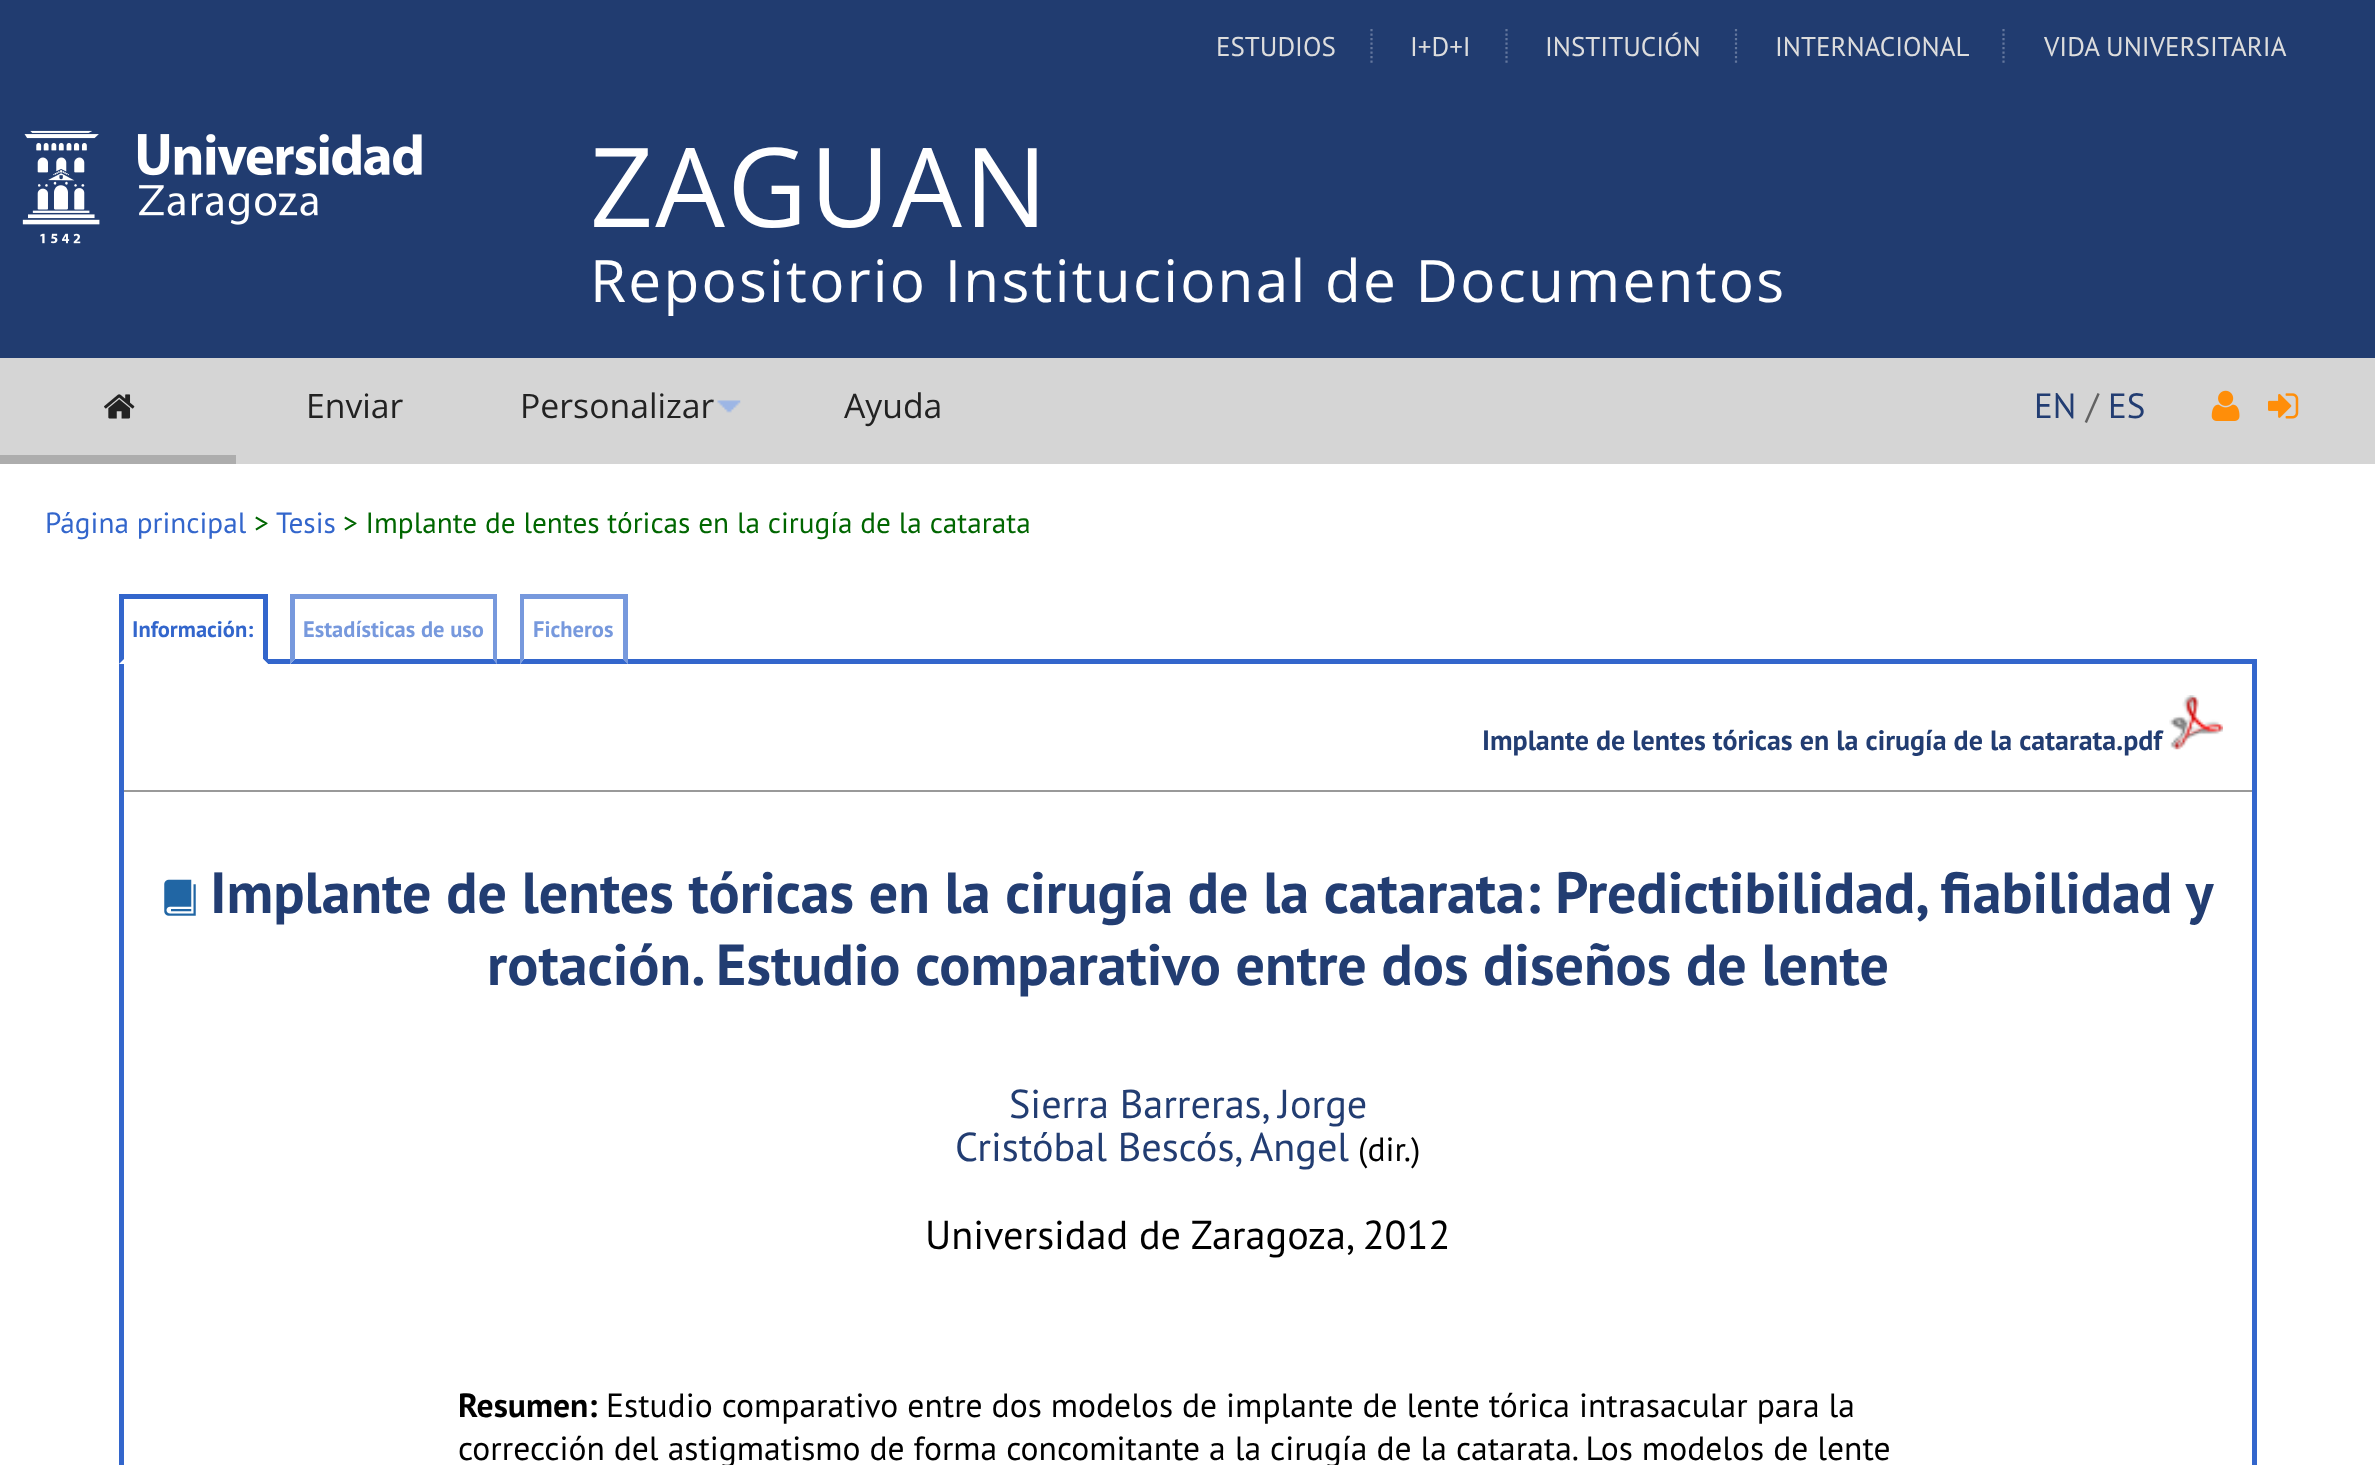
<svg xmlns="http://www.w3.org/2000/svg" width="2375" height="1465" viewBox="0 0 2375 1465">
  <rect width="100%" height="100%" fill="rgb(255,255,255)"/>
  <rect x="0" y="0" width="2375" height="358" fill="rgb(33,60,112)"/>
  <text x="1216" y="56" font-family="PT Sans" font-size="27" fill="rgb(221,221,221)">ESTUDIOS</text>
  <path d="M1371.5 29V63" fill="none" stroke="rgb(100,119,157)" stroke-width="2.2" stroke-dasharray="2.25 2.25"/>
  <text x="1410" y="56" font-family="PT Sans" font-size="27" fill="rgb(221,221,221)">I+D+I</text>
  <path d="M1506.5 29V63" fill="none" stroke="rgb(100,119,157)" stroke-width="2.2" stroke-dasharray="2.25 2.25"/>
  <text x="1545" y="56" font-family="PT Sans" font-size="27" fill="rgb(221,221,221)">INSTITUCIÓN</text>
  <path d="M1736 29V63" fill="none" stroke="rgb(100,119,157)" stroke-width="2.2" stroke-dasharray="2.25 2.25"/>
  <text x="1775" y="56" font-family="PT Sans" font-size="27" fill="rgb(221,221,221)">INTERNACIONAL</text>
  <path d="M2003.5 29V63" fill="none" stroke="rgb(100,119,157)" stroke-width="2.2" stroke-dasharray="2.25 2.25"/>
  <text x="2044" y="56" font-family="PT Sans" font-size="27" fill="rgb(221,221,221)">VIDA UNIVERSITARIA</text>
  <image x="22" y="130" width="400" height="114" href="pic1.png"/>
  <text x="590" y="227" font-family="Open Sans" font-size="110.25" letter-spacing="2.25" fill="rgb(255,255,255)">ZAGUAN</text>
  <text x="590" y="302" font-family="Open Sans" font-size="58.5" letter-spacing="2.25" fill="rgb(255,255,255)">Repositorio Institucional de Documentos</text>
  <rect x="0" y="358" width="2375" height="106" fill="rgb(213,213,213)"/>
  <rect x="0" y="455" width="236" height="9" fill="rgb(173,173,173)"/>
  <image x="104" y="394" width="31" height="25" href="pic2.png"/>
  <g font-family="Open Sans" font-size="33.75" fill="rgb(34,34,34)">
    <text x="306" y="418">Enviar</text>
    <text x="520" y="418">Personalizar</text>
  </g>
  <image x="717" y="400" width="24" height="13" href="pic3.png"/>
  <text x="844" y="418" font-family="Open Sans" font-size="33.75" fill="rgb(34,34,34)">Ayuda</text>
  <text x="2034" y="418" font-family="PT Sans" font-size="35" fill="rgb(34,61,114)">EN</text>
  <text x="2086" y="418" font-family="PT Sans" font-size="35" fill="rgb(98,98,98)">/</text>
  <text x="2108" y="418" font-family="PT Sans" font-size="35" fill="rgb(34,61,114)">ES</text>
  <image x="2211" y="390" width="29" height="31" href="pic4.png"/>
  <image x="2268" y="393" width="31" height="26" href="pic5.png"/>
  <text x="45" y="533" font-family="PT Sans" font-size="29.25" fill="rgb(51,102,204)">Página principal</text>
  <text x="254" y="533" font-family="PT Sans" font-size="29.25" fill="rgb(0,102,0)">&gt;</text>
  <text x="276" y="533" font-family="PT Sans" font-size="29.25" fill="rgb(51,102,204)">Tesis</text>
  <text x="343" y="533" font-family="PT Sans" font-size="29.25" fill="rgb(0,102,0)">&gt; Implante de lentes tóricas en la cirugía de la catarata</text>
  <rect x="268" y="659" width="1989" height="5" fill="rgb(51,102,204)"/>
  <rect x="119" y="594" width="149" height="5" fill="rgb(51,102,204)"/>
  <path d="M268 594V664L263 659V598Z" fill="rgb(51,102,204)"/>
  <path d="M268 664H119L124 659H263Z" fill="rgb(255,255,255)"/>
  <path d="M119 664V594L124 598V659Z" fill="rgb(51,102,204)"/>
  <text x="132" y="637" font-family="PT Sans" font-size="22.5" font-weight="bold" fill="rgb(51,102,204)">Información:</text>
  <rect x="290" y="659" width="207" height="5" fill="rgb(255,255,255)"/>
  <rect x="290" y="594" width="207" height="5" fill="rgb(119,153,221)"/>
  <path d="M497 594V664L493 659V598Z" fill="rgb(119,153,221)"/>
  <path d="M497 664H290L295 659H493Z" fill="rgb(51,102,204)"/>
  <path d="M290 664V594L295 598V659Z" fill="rgb(119,153,221)"/>
  <text x="303" y="637" font-family="PT Sans" font-size="22.5" font-weight="bold" fill="rgb(119,153,221)">Estadísticas de uso</text>
  <rect x="520" y="659" width="108" height="5" fill="rgb(255,255,255)"/>
  <rect x="520" y="594" width="108" height="5" fill="rgb(119,153,221)"/>
  <path d="M628 594V664L623 659V598Z" fill="rgb(119,153,221)"/>
  <path d="M628 664H520L524 659H623Z" fill="rgb(51,102,204)"/>
  <path d="M520 664V594L524 598V659Z" fill="rgb(119,153,221)"/>
  <text x="533" y="637" font-family="PT Sans" font-size="22.5" font-weight="bold" fill="rgb(119,153,221)">Ficheros</text>
  <rect x="2252" y="664" width="5" height="801" fill="rgb(51,102,204)"/>
  <rect x="119" y="664" width="5" height="801" fill="rgb(51,102,204)"/>
  <text x="1482" y="750" font-family="PT Sans" font-size="28" font-weight="bold" fill="rgb(34,61,114)">Implante de lentes tóricas en la cirugía de la catarata.pdf</text>
  <image x="2169" y="695" width="54" height="55" href="pic6.png"/>
  <rect x="124" y="790" width="2128" height="2" fill="rgb(153,153,153)"/>
  <image x="164" y="879" width="32" height="37" href="pic7.png"/>
  <g font-family="PT Sans" font-size="58.05" font-weight="bold" fill="rgb(34,61,114)">
    <text x="210" y="913">Implante de lentes tóricas en la cirugía de la catarata: Predictibilidad, fiabilidad y</text>
    <text x="487" y="985">rotación. Estudio comparativo entre dos diseños de lente</text>
  </g>
  <g font-family="PT Sans" font-size="40.25" fill="rgb(34,61,114)">
    <text x="1009" y="1118">Sierra Barreras, Jorge</text>
    <text x="955" y="1161">Cristóbal Bescós, Angel</text>
  </g>
  <text x="1358" y="1161" font-family="PT Sans" font-size="33.6" fill="rgb(0,0,0)">(dir.)</text>
  <text x="925" y="1249" font-family="PT Sans" font-size="40.25" fill="rgb(0,0,0)">Universidad de Zaragoza, 2012</text>
  <text x="458" y="1417" font-family="PT Sans" font-size="33.6" font-weight="bold" fill="rgb(0,0,0)">Resumen:</text>
  <g font-family="PT Sans" font-size="33.6" fill="rgb(0,0,0)">
    <text x="606" y="1417">Estudio comparativo entre dos modelos de implante de lente tórica intrasacular para la</text>
    <text x="458" y="1460">corrección del astigmatismo de forma concomitante a la cirugía de la catarata. Los modelos de lente</text>
  </g>
</svg>
